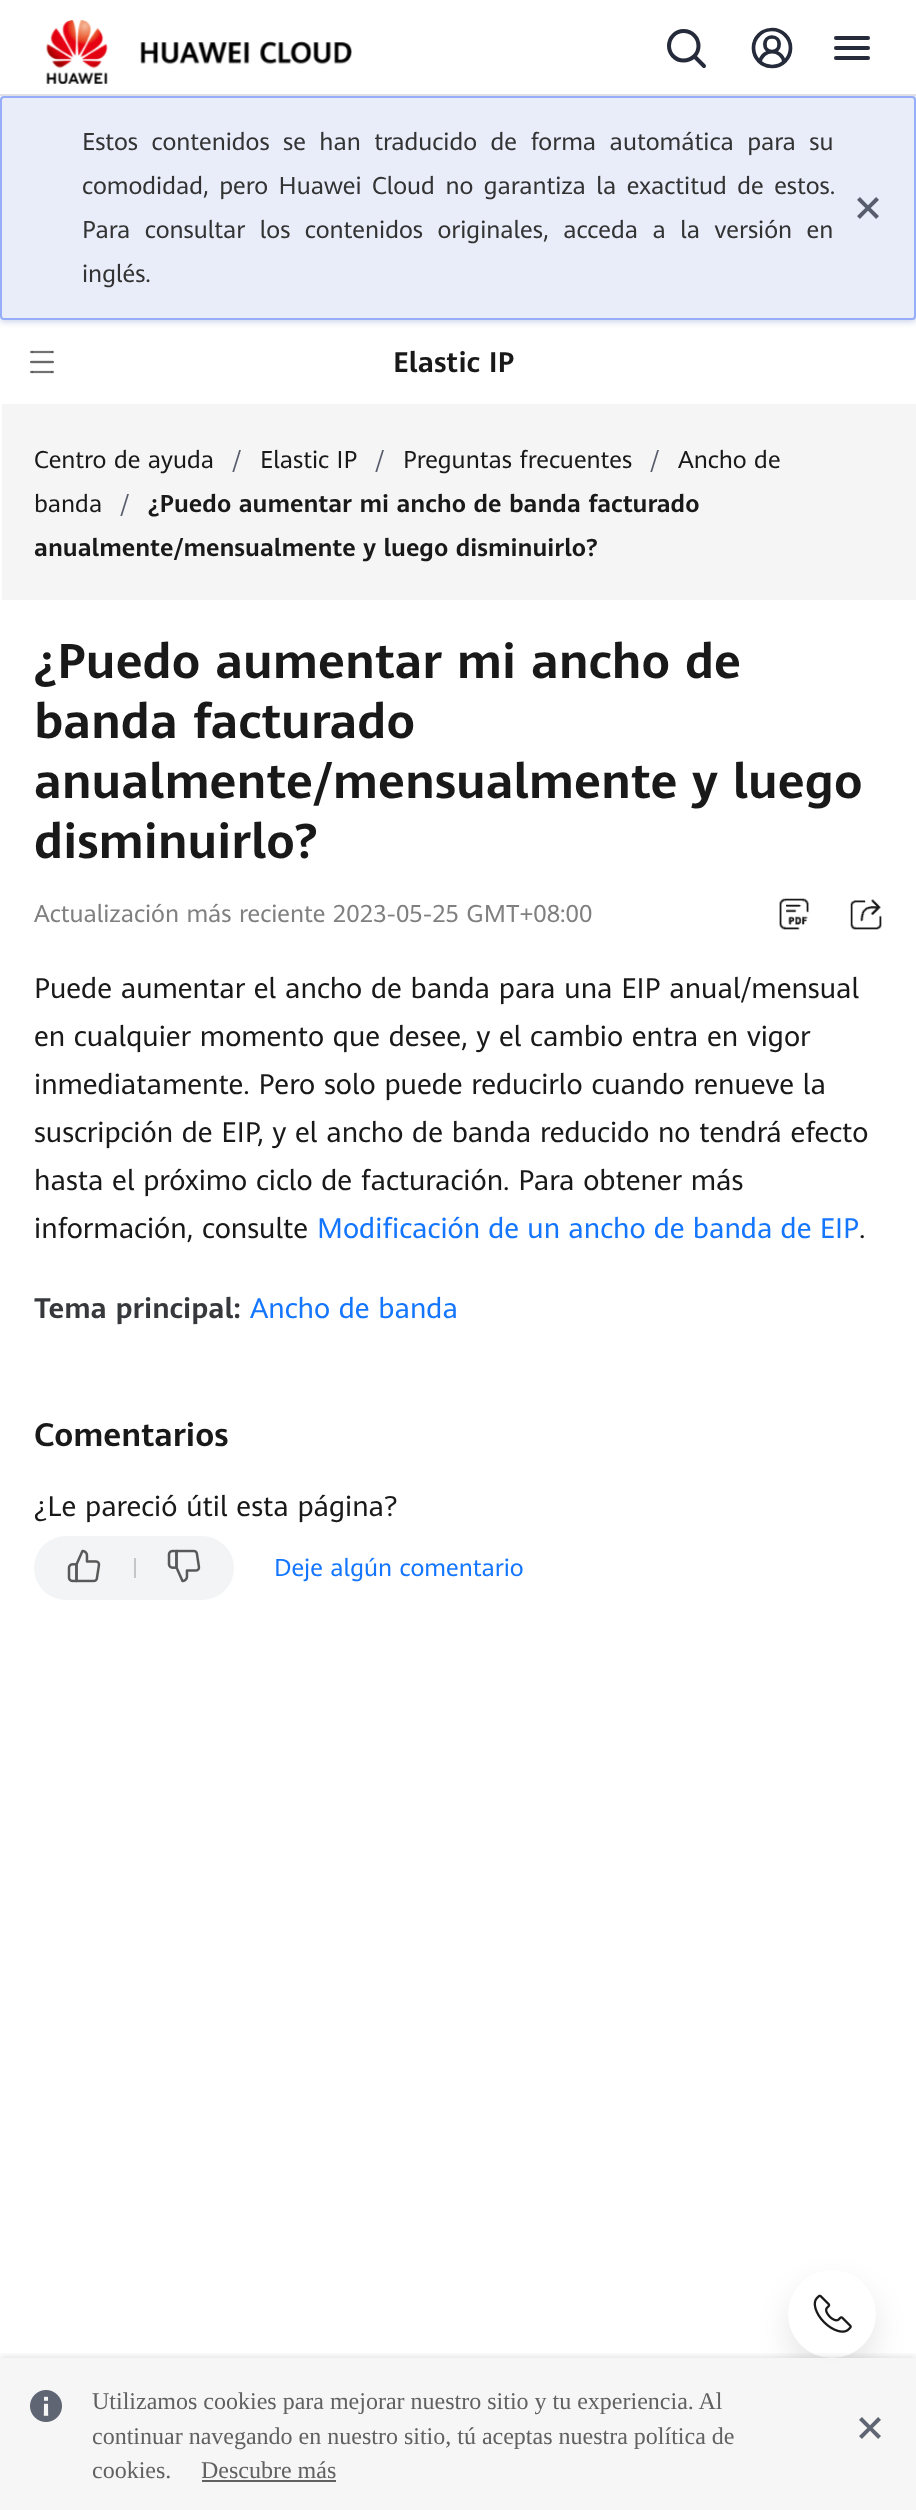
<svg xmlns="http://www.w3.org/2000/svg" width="916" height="2510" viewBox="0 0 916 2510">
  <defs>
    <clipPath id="clip1"><rect x="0" y="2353" width="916" height="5"/></clipPath>
  </defs>
  <rect width="100%" height="100%" fill="rgb(245,245,246)"/>
  <rect x="0" y="96" width="4" height="224" fill="rgb(255,255,255)"/>
  <rect x="0" y="320" width="916" height="2190" fill="rgb(255,255,255)"/>
  <rect x="0" y="98" width="916" height="224" rx="4" fill="rgba(56,82,170,0.25)" filter="blur(3px)"/>
  <rect x="0" y="0" width="916" height="94" fill="rgb(255,255,255)"/>
  <rect x="0" y="94" width="916" height="2" fill="rgb(223,225,230)"/>
  <image x="46" y="20" width="306" height="64" href="pic1.png"/>
  <path d="M683.5 31C675.5 31 669 37.5 669 46C669 54 675.5 60.5 683.5 60.5C692 60.5 698.5 54 698.5 46C698.5 37.5 692 31 683.5 31Z" fill="none" stroke="rgb(37,43,58)" stroke-width="4"/>
  <path d="M694.5 56.5L704 66" fill="none" stroke="rgb(37,43,58)" stroke-width="4" stroke-linecap="round"/>
  <circle cx="772" cy="48" r="18.5" fill="none" stroke="rgb(37,43,58)" stroke-width="3.7"/>
  <path d="M772 51.5C781.5 51.5 781.5 37 772 37C762.5 37 762.5 51.5 772 51.5ZM784 62C782 48.5 762.5 48 760 62" fill="none" stroke="rgb(37,43,58)" stroke-width="3.7"/>
  <rect x="834" y="36" width="36" height="4" rx="2" fill="rgb(37,43,58)"/>
  <rect x="834" y="46" width="36" height="4" rx="2" fill="rgb(37,43,58)"/>
  <rect x="834" y="56" width="36" height="4" rx="2" fill="rgb(37,43,58)"/>
  <rect x="1" y="97" width="914" height="222" rx="3" fill="rgb(233,237,250)" stroke="rgb(150,173,250)" stroke-width="2"/>
  <g font-family="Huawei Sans" font-size="24" fill="rgb(51,51,51)">
    <text>
      <tspan x="82" y="150" word-spacing="6">Estos contenidos se han traducido de forma automática para su</tspan>
      <tspan x="82" y="194" word-spacing="3">comodidad, pero Huawei Cloud no garantiza la exactitud de estos.</tspan>
    </text>
  </g>
  <image x="857" y="197" width="22" height="22" href="pic2.png"/>
  <g font-family="Huawei Sans" font-size="24" fill="rgb(51,51,51)">
    <text>
      <tspan x="82" y="238" word-spacing="7">Para consultar los contenidos originales, acceda a la versión en</tspan>
      <tspan x="82" y="282">inglés.</tspan>
    </text>
  </g>
  <image x="30" y="350" width="24" height="24" href="pic3.png"/>
  <text x="393" y="372" font-family="Huawei Sans" font-size="28" font-weight="bold" fill="rgb(25,25,25)">Elastic IP</text>
  <rect x="2" y="404" width="914" height="196" fill="rgb(245,245,245)"/>
  <text x="34" y="468" font-family="Huawei Sans" font-size="24" fill="rgb(25,25,25)">Centro de ayuda</text>
  <text x="232" y="468" font-family="Huawei Sans" font-size="24" fill="rgb(87,93,108)">/</text>
  <text x="260" y="468" font-family="Huawei Sans" font-size="24" fill="rgb(25,25,25)">Elastic IP</text>
  <text x="375" y="468" font-family="Huawei Sans" font-size="24" fill="rgb(87,93,108)">/</text>
  <text x="403" y="468" font-family="Huawei Sans" font-size="24" fill="rgb(25,25,25)">Preguntas frecuentes</text>
  <text x="650" y="468" font-family="Huawei Sans" font-size="24" fill="rgb(87,93,108)">/</text>
  <g font-family="Huawei Sans" font-size="24" fill="rgb(25,25,25)">
    <text x="678" y="468">Ancho de</text>
    <text x="34" y="512">banda</text>
  </g>
  <text x="120" y="512" font-family="Huawei Sans" font-size="24" fill="rgb(87,93,108)">/</text>
  <g font-family="Huawei Sans" font-size="24" font-weight="bold" fill="rgb(25,25,25)">
    <text x="148" y="512">¿Puedo aumentar mi ancho de banda facturado</text>
    <text x="34" y="556">anualmente/mensualmente y luego disminuirlo?</text>
  </g>
  <g font-family="Huawei Sans" font-size="48" font-weight="bold" fill="rgb(25,25,25)">
    <text>
      <tspan x="34" y="678">¿Puedo aumentar mi ancho de</tspan>
      <tspan x="34" y="738">banda facturado</tspan>
      <tspan x="34" y="798">anualmente/mensualmente y luego</tspan>
      <tspan x="34" y="858">disminuirlo?</tspan>
    </text>
  </g>
  <text x="34" y="922" font-family="Huawei Sans" font-size="24" fill="rgb(128,128,128)">Actualización más reciente 2023-05-25 GMT+08:00</text>
  <image x="779" y="898" width="30" height="32" href="pic4.png"/>
  <image x="850" y="899" width="32" height="31" href="pic5.png"/>
  <g font-family="Huawei Sans" font-size="28" fill="rgb(25,25,25)">
    <text>
      <tspan x="34" y="998">Puede aumentar el ancho de banda para una EIP anual/mensual</tspan>
      <tspan x="34" y="1046">en cualquier momento que desee, y el cambio entra en vigor</tspan>
      <tspan x="34" y="1094">inmediatamente. Pero solo puede reducirlo cuando renueve la</tspan>
      <tspan x="34" y="1142">suscripción de EIP, y el ancho de banda reducido no tendrá efecto</tspan>
      <tspan x="34" y="1190">hasta el próximo ciclo de facturación. Para obtener más</tspan>
      <tspan x="34" y="1238">información, consulte</tspan>
    </text>
  </g>
  <text x="317" y="1238" word-spacing="-0.5" font-family="Huawei Sans" font-size="28" fill="rgb(20,118,255)">Modificación de un ancho de banda de EIP</text>
  <text x="859" y="1238" font-family="Huawei Sans" font-size="28" fill="rgb(25,25,25)">.</text>
  <text x="34" y="1318" font-family="Huawei Sans" font-size="28" font-weight="bold" fill="rgb(54,56,60)">Tema principal:</text>
  <text x="250" y="1318" font-family="Huawei Sans" font-size="28" fill="rgb(20,118,255)">Ancho de banda</text>
  <text x="34" y="1446" font-family="Huawei Sans" font-size="32" font-weight="bold" fill="rgb(25,25,25)">Comentarios</text>
  <text x="34" y="1516" font-family="Huawei Sans" font-size="28" fill="rgb(25,25,25)">¿Le pareció útil esta página?</text>
  <rect x="34" y="1536" width="200" height="64" rx="32" fill="rgb(243,244,245)"/>
  <image x="67" y="1549" width="34" height="34" href="pic6.png"/>
  <rect x="134" y="1558" width="2" height="20" fill="rgb(197,198,198)"/>
  <image x="167" y="1549" width="34" height="34" href="pic7.png"/>
  <text x="274" y="1576" font-family="Huawei Sans" font-size="24" fill="rgb(20,118,255)">Deje algún comentario</text>
  <rect x="788" y="2286" width="88" height="88" rx="44" fill="rgba(0,0,0,0.1)" filter="blur(16px)"/>
  <circle cx="832" cy="2314" r="44" fill="rgb(255,255,255)"/>
  <image x="813" y="2294" width="39" height="39" href="pic8.png"/>
  <g clip-path="url(#clip1)">
    <rect x="0" y="2356" width="916" height="152" fill="rgba(0,0,0,0.1)" filter="blur(3px)"/>
  </g>
  <rect x="0" y="2358" width="916" height="152" fill="rgba(245,245,245,0.95)"/>
  <image x="30" y="2390" width="32" height="32" href="pic9.png"/>
  <g font-family="Liberation Serif" font-size="24" fill="rgb(97,97,97)">
    <text>
      <tspan x="92" y="2409">Utilizamos cookies para mejorar nuestro sitio y tu experiencia. Al</tspan>
      <tspan x="92" y="2444">continuar navegando en nuestro sitio, tú aceptas nuestra política de</tspan>
      <tspan x="92" y="2478">cookies.</tspan>
    </text>
    <text x="201" y="2478">Descubre más</text>
  </g>
  <rect x="202" y="2480" width="134" height="2" fill="rgb(97,97,97)"/>
  <image x="859" y="2417" width="22" height="22" href="pic10.png"/>
</svg>
